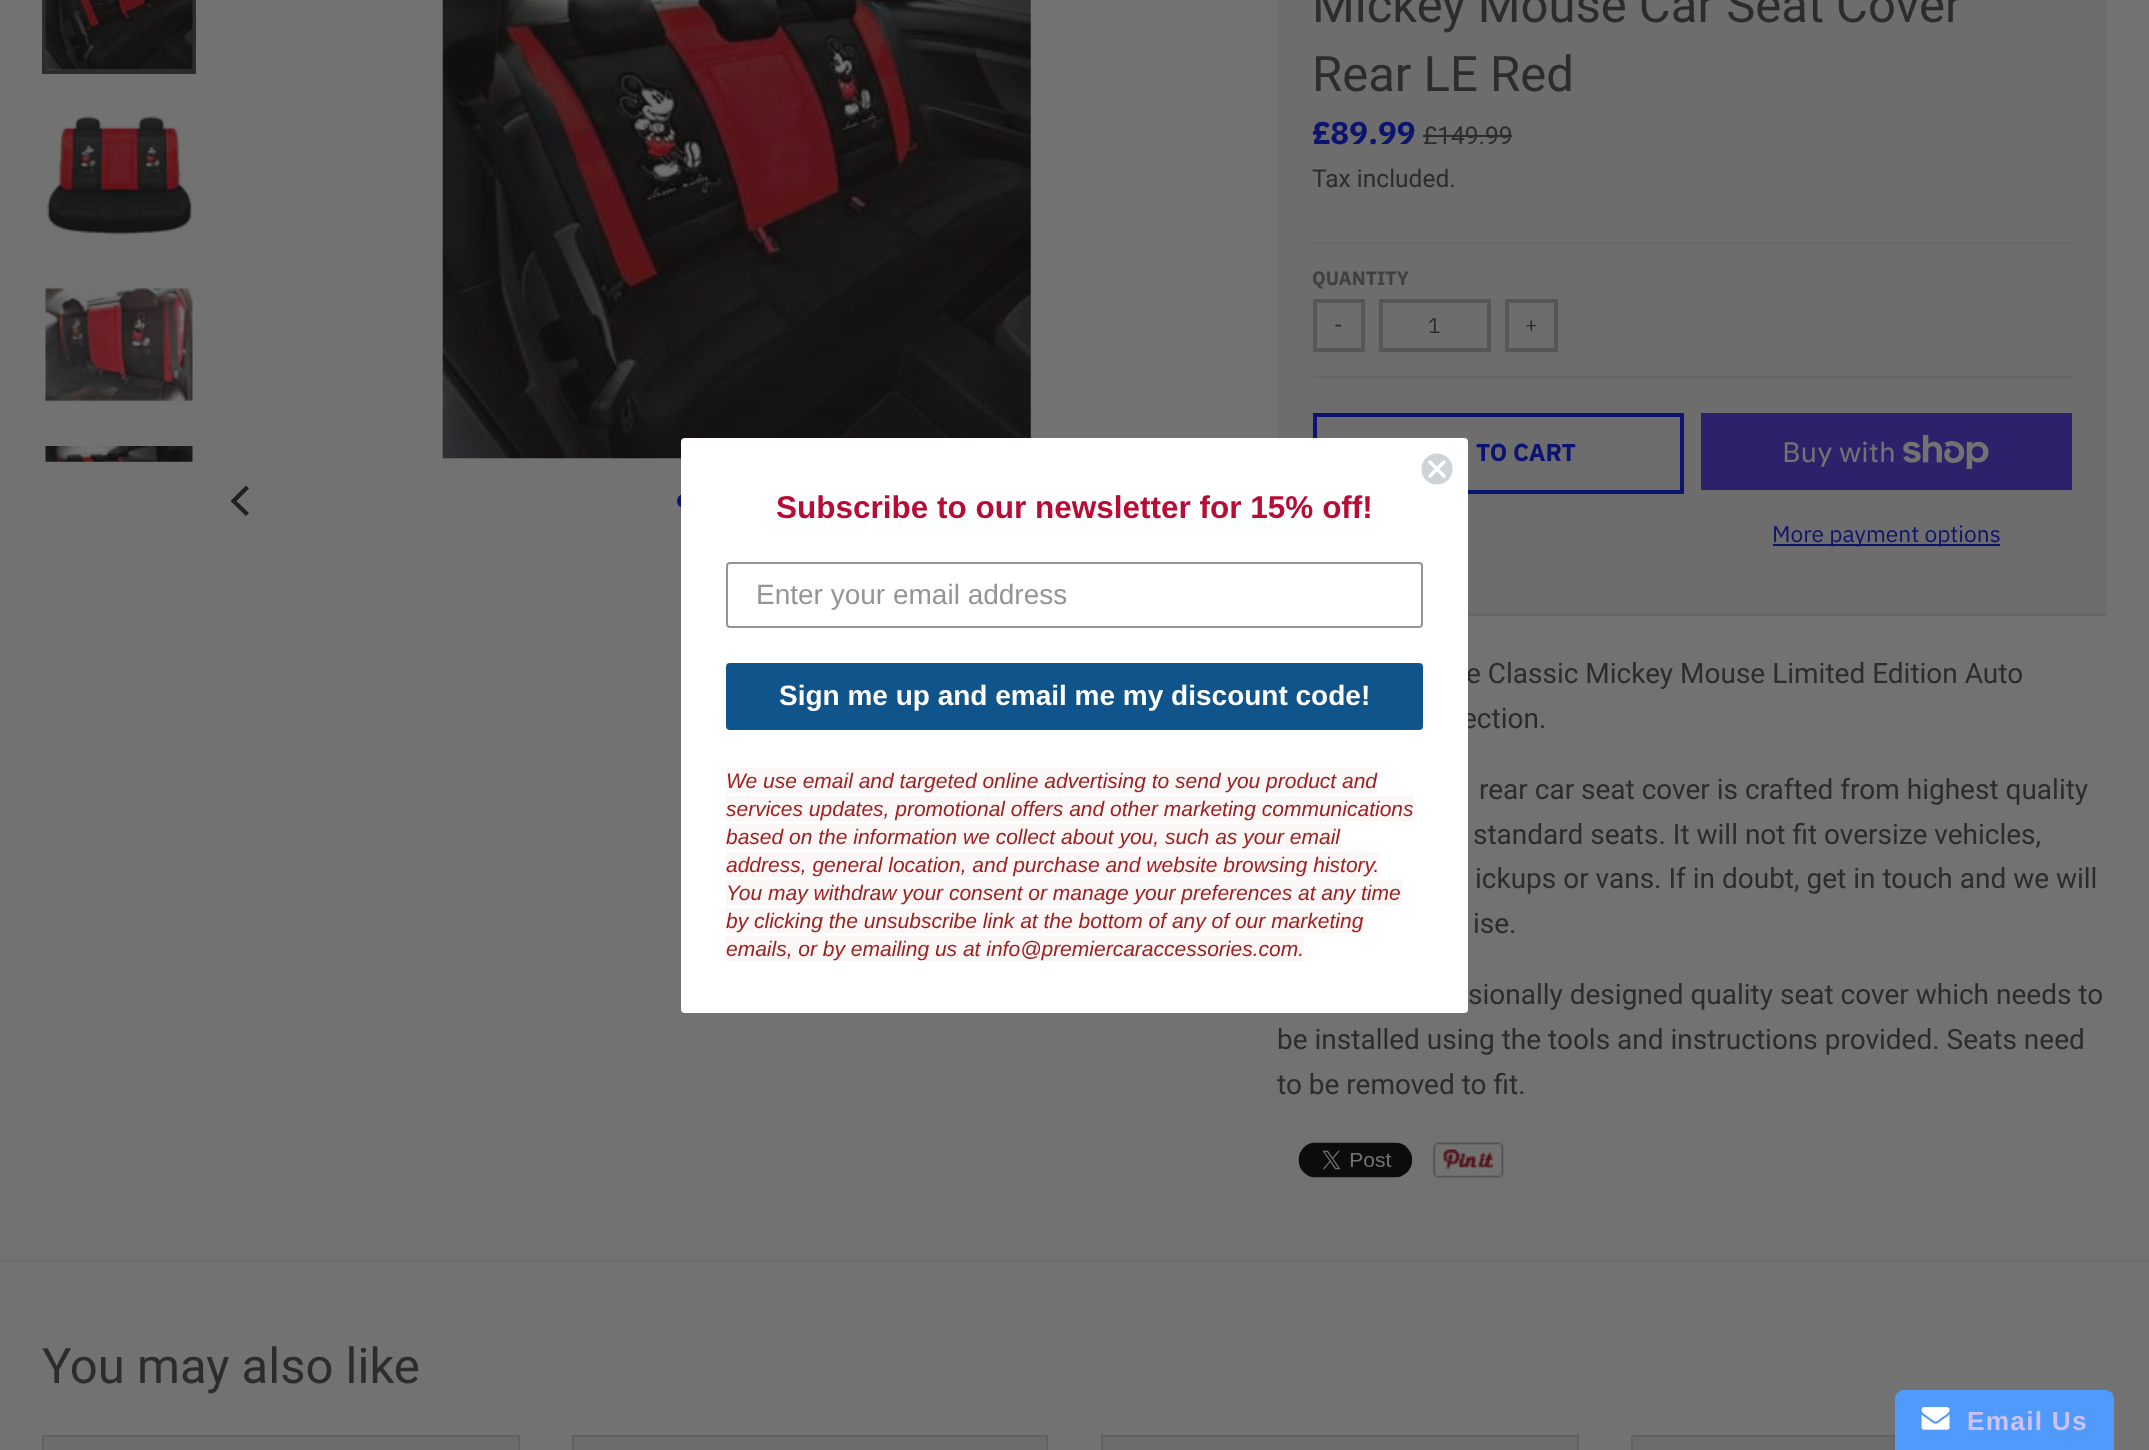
<svg xmlns="http://www.w3.org/2000/svg" width="2149" height="1450" viewBox="0 0 2149 1450">
  <defs>
    <clipPath id="clip1"><rect x="1419" y="452" width="35" height="35"/></clipPath>
  </defs>
  <rect width="100%" height="100%" fill="rgb(114,114,114)"/>
  <rect x="0" y="1260" width="2149" height="2" fill="rgb(107,107,107)"/>
  <rect x="44" y="-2" width="150" height="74" fill="none" stroke="rgb(44,44,44)" stroke-width="4"/>
  <image x="45" y="0" width="148" height="70" href="pic1.png"/>
  <image x="46" y="115" width="147" height="120" href="pic2.png"/>
  <image x="45" y="285" width="148" height="118" href="pic3.png"/>
  <image x="45" y="446" width="148" height="16" href="pic4.png"/>
  <image x="442" y="0" width="589" height="459" href="pic5.png"/>
  <path d="M230.5 501L246 516L249 513L236.5 501L249 488.5L246 485.5Z" fill="rgb(32,32,32)"/>
  <circle cx="684" cy="501" r="7" fill="rgb(13,19,112)"/>
  <rect x="1278" y="0" width="829" height="614" fill="rgb(109,109,109)"/>
  <rect x="1468" y="614" width="639" height="2" fill="rgb(102,102,102)"/>
  <g font-family="Roboto" font-size="49" fill="rgb(44,44,44)">
    <text>
      <tspan x="1312" y="22">Mickey Mouse Car Seat Cover</tspan>
      <tspan x="1312" y="91">Rear LE Red</tspan>
    </text>
  </g>
  <rect x="1313" y="242" width="759" height="2" fill="rgb(102,102,102)"/>
  <text x="1312" y="144" font-family="IBM Plex Sans" font-size="31.5" font-weight="bold" fill="rgb(13,19,112)">£89.99</text>
  <text x="1423" y="144" font-family="Roboto" font-size="24.5" fill="rgb(44,44,44)">£149.99</text>
  <rect x="1423" y="135" width="89" height="2" fill="rgb(44,44,44)"/>
  <text x="1312" y="187" font-family="Roboto" font-size="24.5" fill="rgb(44,44,44)">Tax included.</text>
  <rect x="1313" y="376" width="759" height="2" fill="rgb(102,102,102)"/>
  <text x="1312" y="285" font-family="IBM Plex Sans" font-size="19.25" font-weight="bold" fill="rgb(64,64,64)">QUANTITY</text>
  <rect x="1315" y="301" width="48" height="49" fill="none" stroke="rgb(86,86,86)" stroke-width="4"/>
  <text x="1334" y="332" font-family="IBM Plex Sans" font-size="21" fill="rgb(44,44,44)">-</text>
  <rect x="1381" y="301" width="108" height="49" fill="none" stroke="rgb(86,86,86)" stroke-width="4"/>
  <text x="1428" y="333" font-family="IBM Plex Sans" font-size="21" fill="rgb(44,44,44)">1</text>
  <rect x="1507" y="301" width="49" height="49" fill="none" stroke="rgb(86,86,86)" stroke-width="4"/>
  <text x="1525" y="332" font-family="IBM Plex Sans" font-size="21" fill="rgb(44,44,44)">+</text>
  <rect x="1315" y="415" width="367" height="77" fill="none" stroke="rgb(13,19,112)" stroke-width="4"/>
  <text x="1476" y="461" font-family="IBM Plex Sans" font-size="24.5" font-weight="bold" fill="rgb(13,19,112)">TO CART</text>
  <rect x="1701" y="413" width="371" height="77" fill="rgb(46,32,106)"/>
  <text x="1782" y="462" font-family="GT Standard" font-size="28" fill="rgb(114,114,114)">Buy with</text>
  <image x="1903" y="434" width="86" height="35" href="pic6.png"/>
  <rect x="1773" y="544" width="227" height="2" fill="rgb(13,19,112)"/>
  <text x="1772" y="542" font-family="IBM Plex Sans" font-size="22.75" fill="rgb(13,19,112)">More payment options</text>
  <g font-family="Roboto" font-size="28" fill="rgb(44,44,44)">
    <text x="1466" y="683">e Classic Mickey Mouse Limited Edition Auto</text>
    <text x="1462" y="728">ection.</text>
    <text x="1479" y="799">rear car seat cover is crafted from highest quality</text>
    <text x="1473" y="844">standard seats. It will not fit oversize vehicles,</text>
    <text x="1475" y="888">ickups or vans. If in doubt, get in touch and we will</text>
    <text x="1473" y="933">ise.</text>
    <text x="1468" y="1004">sionally designed quality seat cover which needs to</text>
    <text>
      <tspan x="1277" y="1049">be installed using the tools and instructions provided. Seats need</tspan>
      <tspan x="1277" y="1094">to be removed to fit.</tspan>
    </text>
  </g>
  <image x="1298" y="1142" width="115" height="36" href="pic7.png"/>
  <image x="1433" y="1142" width="71" height="36" href="pic8.png"/>
  <text x="42" y="1383" font-family="Roboto" font-size="49" fill="rgb(44,44,44)">You may also like</text>
  <rect x="43" y="1436" width="476" height="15" fill="rgb(108,108,108)" stroke="rgb(98,98,98)" stroke-width="2"/>
  <rect x="573" y="1436" width="474" height="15" fill="rgb(108,108,108)" stroke="rgb(98,98,98)" stroke-width="2"/>
  <rect x="1102" y="1436" width="476" height="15" fill="rgb(108,108,108)" stroke="rgb(98,98,98)" stroke-width="2"/>
  <rect x="1633" y="1437" width="262" height="13" fill="rgb(108,108,108)"/>
  <rect x="1632" y="1436" width="474" height="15" fill="none" stroke="rgb(98,98,98)" stroke-width="2"/>
  <rect x="681" y="438" width="787" height="575" rx="4" fill="rgb(255,255,255)"/>
  <circle cx="1437" cy="469" r="16.5" fill="rgb(206,211,216)"/>
  <g clip-path="url(#clip1)">
    <circle cx="1437" cy="469" r="16.5" fill="none" stroke="rgb(255,255,255)" stroke-width="1.8"/>
  </g>
  <path d="M1430 462L1444 476M1430 476L1444 462Z" fill="none" stroke="rgb(255,255,255)" stroke-width="3.5" stroke-linecap="round" stroke-linejoin="round"/>
  <text x="776" y="518" font-family="Liberation Sans" font-size="31.5" font-weight="bold" fill="rgb(182,12,53)">Subscribe to our newsletter for 15% off!</text>
  <rect x="727" y="563" width="695" height="64" rx="3" fill="none" stroke="rgb(148,149,150)" stroke-width="2"/>
  <text x="756" y="604" font-family="Liberation Sans" font-size="28" fill="rgb(148,149,150)">Enter your email address</text>
  <rect x="726" y="663" width="697" height="67" rx="4" fill="rgb(15,84,138)"/>
  <text x="779" y="705" font-family="Liberation Sans" font-size="28" font-weight="bold" fill="rgb(255,255,255)">Sign me up and email me my discount code!</text>
  <rect x="726" y="768" width="651" height="25" fill="rgb(252,247,247)"/>
  <text x="726" y="788" font-family="Liberation Sans" font-size="21" font-style="italic" fill="rgb(160,31,31)">We use email and targeted online advertising to send you product and</text>
  <rect x="726" y="796" width="688" height="25" fill="rgb(252,247,247)"/>
  <text x="726" y="816" font-family="Liberation Sans" font-size="21" font-style="italic" fill="rgb(160,31,31)">services updates, promotional offers and other marketing communications</text>
  <rect x="726" y="824" width="615" height="25" fill="rgb(252,247,247)"/>
  <text x="726" y="844" font-family="Liberation Sans" font-size="21" font-style="italic" fill="rgb(160,31,31)">based on the information we collect about you, such as your email</text>
  <rect x="726" y="852" width="653" height="25" fill="rgb(252,247,247)"/>
  <text x="726" y="872" font-family="Liberation Sans" font-size="21" font-style="italic" fill="rgb(160,31,31)">address, general location, and purchase and website browsing history.</text>
  <rect x="726" y="880" width="676" height="25" fill="rgb(252,247,247)"/>
  <text x="726" y="900" font-family="Liberation Sans" font-size="21" font-style="italic" fill="rgb(160,31,31)">You may withdraw your consent or manage your preferences at any time</text>
  <rect x="726" y="908" width="637" height="25" fill="rgb(252,247,247)"/>
  <text x="726" y="928" font-family="Liberation Sans" font-size="21" font-style="italic" fill="rgb(160,31,31)">by clicking the unsubscribe link at the bottom of any of our marketing</text>
  <rect x="726" y="936" width="578" height="25" fill="rgb(252,247,247)"/>
  <text x="726" y="956" font-family="Liberation Sans" font-size="21" font-style="italic" fill="rgb(160,31,31)">emails, or by emailing us at info@premiercaraccessories.com.</text>
  <path d="M1904 1390H2105C2110 1390 2114 1394 2114 1399V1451H1895V1399C1895 1394 1899 1390 1904 1390Z" fill="rgb(80,154,251)"/>
  <image x="1921" y="1407" width="29" height="23" href="pic9.png"/>
  <text x="1967" y="1430" font-family="Liberation Sans" font-size="26.25" font-weight="bold" letter-spacing="1.25" fill="rgb(206,193,245)">Email Us</text>
</svg>
